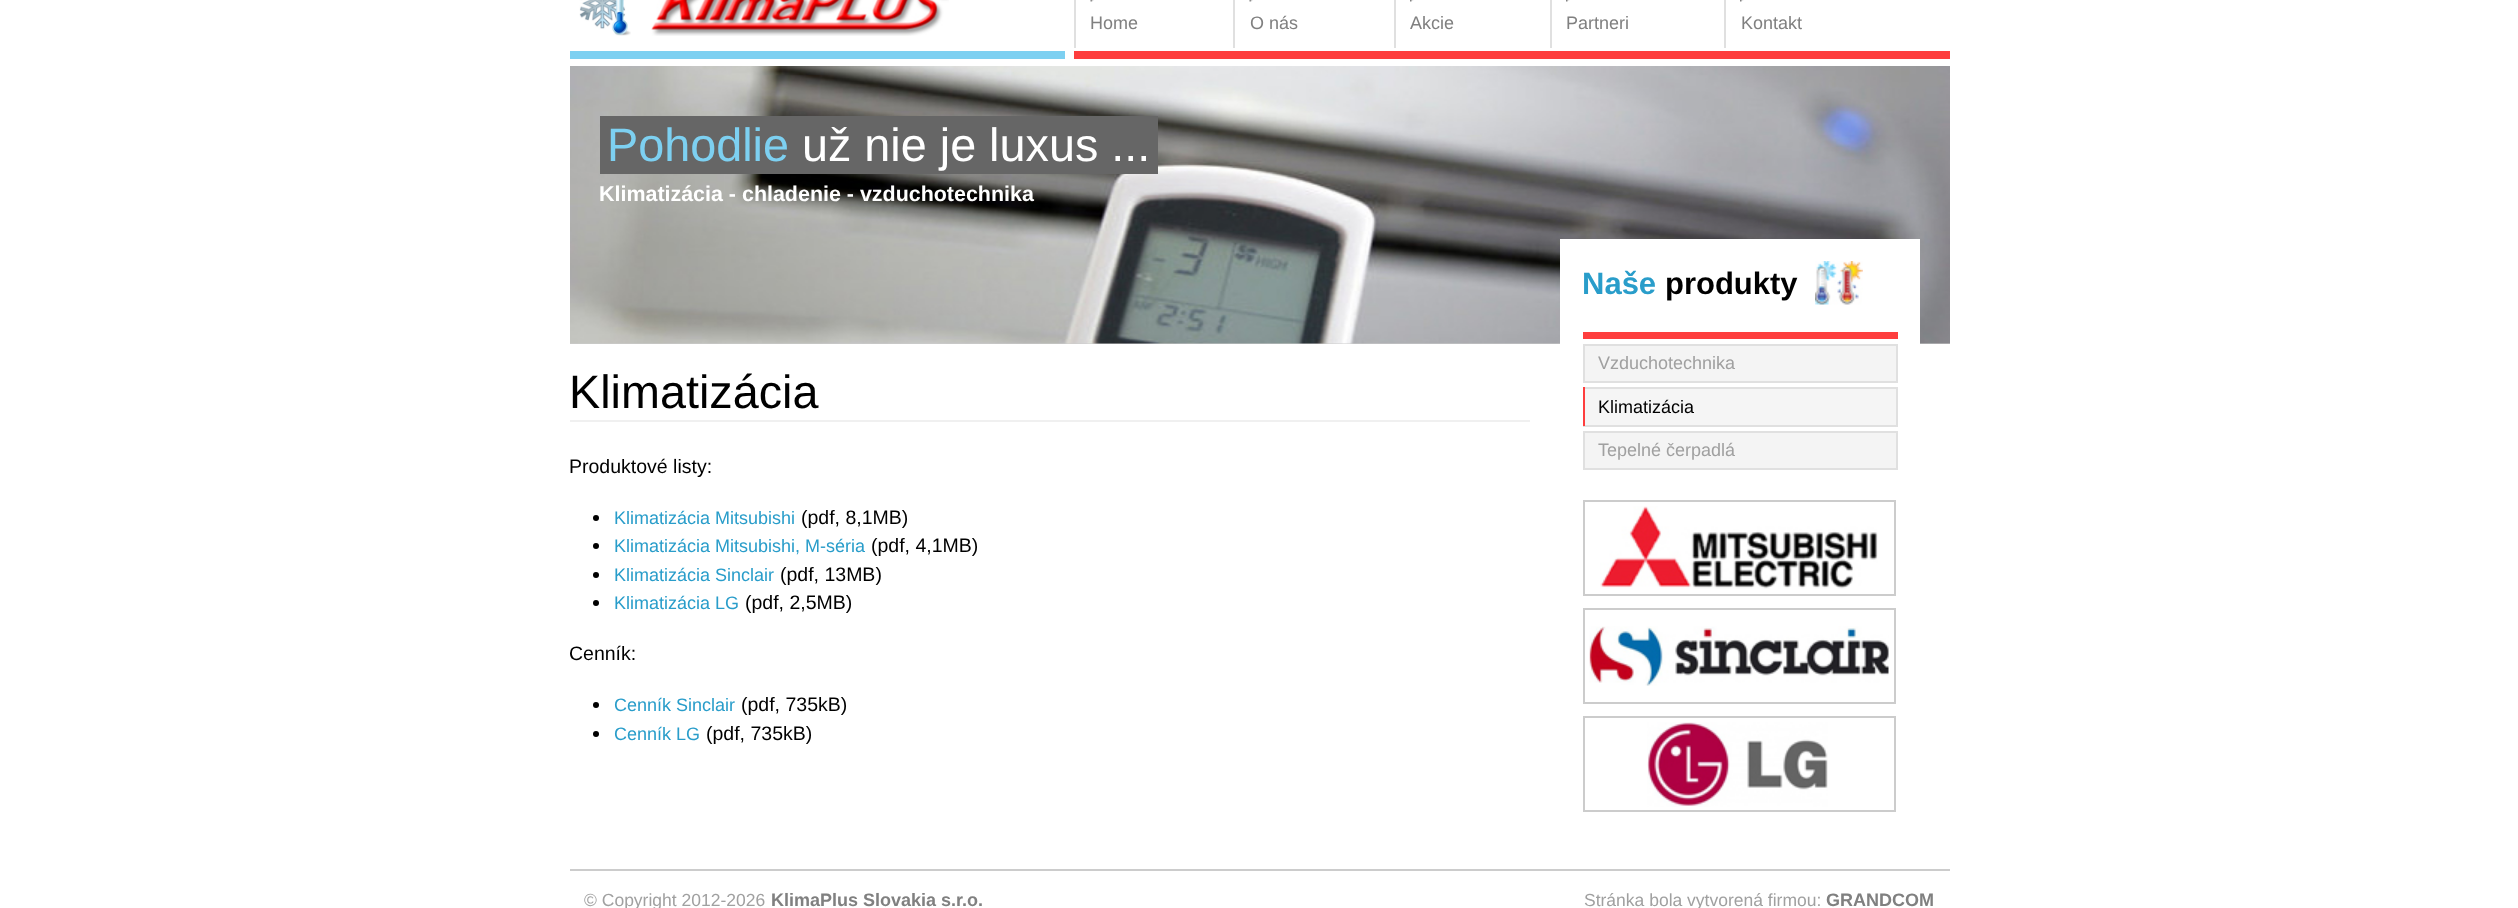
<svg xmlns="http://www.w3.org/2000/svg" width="2518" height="908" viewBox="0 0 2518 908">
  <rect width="100%" height="100%" fill="rgb(255,255,255)"/>
  <rect x="570" y="51" width="495" height="8" fill="rgb(125,208,241)"/>
  <image x="579" y="0" width="52" height="36" href="pic1.png"/>
  <image x="651" y="0" width="298" height="36" href="pic2.png"/>
  <rect x="1074" y="51" width="876" height="8" fill="rgb(254,62,62)"/>
  <image x="1090" y="0" width="4" height="2" href="pic3.png"/>
  <image x="1249" y="0" width="4" height="2" href="pic3.png"/>
  <image x="1410" y="0" width="4" height="2" href="pic4.png"/>
  <image x="1566" y="0" width="4" height="2" href="pic4.png"/>
  <image x="1740" y="0" width="4" height="2" href="pic4.png"/>
  <text x="1090" y="29" font-family="Liberation Sans" font-size="18" fill="rgb(128,128,128)">Home</text>
  <rect x="1074" y="0" width="2" height="48" fill="rgb(224,224,224)"/>
  <text x="1250" y="29" font-family="Liberation Sans" font-size="18" fill="rgb(128,128,128)">O nás</text>
  <rect x="1233" y="0" width="2" height="48" fill="rgb(224,224,224)"/>
  <text x="1410" y="29" font-family="Liberation Sans" font-size="18" fill="rgb(128,128,128)">Akcie</text>
  <rect x="1394" y="0" width="2" height="48" fill="rgb(224,224,224)"/>
  <text x="1566" y="29" font-family="Liberation Sans" font-size="18" fill="rgb(128,128,128)">Partneri</text>
  <rect x="1550" y="0" width="2" height="48" fill="rgb(224,224,224)"/>
  <text x="1741" y="29" font-family="Liberation Sans" font-size="18" fill="rgb(128,128,128)">Kontakt</text>
  <rect x="1724" y="0" width="2" height="48" fill="rgb(224,224,224)"/>
  <rect x="570" y="343" width="1380" height="1" fill="rgb(204,204,204)"/>
  <image x="570" y="66" width="1380" height="278" href="pic5.png"/>
  <rect x="600" y="116" width="558" height="58" fill="rgb(102,102,102)"/>
  <text x="607" y="161" font-family="Liberation Sans" font-size="46.75" fill="rgb(125,208,241)">Pohodlie</text>
  <text x="802" y="161" font-family="Liberation Sans" font-size="46.75" fill="rgb(255,255,255)">už nie je luxus ...</text>
  <text x="599" y="201" font-family="Liberation Sans" font-size="21.45" font-weight="bold" fill="rgb(255,255,255)">Klimatizácia - chladenie - vzduchotechnika</text>
  <rect x="570" y="420" width="960" height="2" fill="rgb(240,240,240)"/>
  <text x="569" y="408" font-family="Liberation Sans" font-size="46.75" fill="rgb(0,0,0)">Klimatizácia</text>
  <text x="569" y="473" font-family="Liberation Sans" font-size="19.5" fill="rgb(0,0,0)">Produktové listy:</text>
  <circle cx="596" cy="518" r="3" fill="rgb(0,0,0)"/>
  <text x="614" y="524" font-family="Liberation Sans" font-size="18" fill="rgb(41,157,202)">Klimatizácia Mitsubishi</text>
  <text x="801" y="524" font-family="Liberation Sans" font-size="19.5" fill="rgb(0,0,0)">(pdf, 8,1MB)</text>
  <circle cx="596" cy="546" r="3" fill="rgb(0,0,0)"/>
  <text x="614" y="552" font-family="Liberation Sans" font-size="18" fill="rgb(41,157,202)">Klimatizácia Mitsubishi, M-séria</text>
  <text x="871" y="552" font-family="Liberation Sans" font-size="19.5" fill="rgb(0,0,0)">(pdf, 4,1MB)</text>
  <circle cx="596" cy="575" r="3" fill="rgb(0,0,0)"/>
  <text x="614" y="581" font-family="Liberation Sans" font-size="18" fill="rgb(41,157,202)">Klimatizácia Sinclair</text>
  <text x="780" y="581" font-family="Liberation Sans" font-size="19.5" fill="rgb(0,0,0)">(pdf, 13MB)</text>
  <circle cx="596" cy="603" r="3" fill="rgb(0,0,0)"/>
  <text x="614" y="609" font-family="Liberation Sans" font-size="18" fill="rgb(41,157,202)">Klimatizácia LG</text>
  <g font-family="Liberation Sans" font-size="19.5" fill="rgb(0,0,0)">
    <text x="745" y="609">(pdf, 2,5MB)</text>
    <text x="569" y="660">Cenník:</text>
  </g>
  <circle cx="596" cy="705" r="3" fill="rgb(0,0,0)"/>
  <text x="614" y="711" font-family="Liberation Sans" font-size="18" fill="rgb(41,157,202)">Cenník Sinclair</text>
  <text x="741" y="711" font-family="Liberation Sans" font-size="19.5" fill="rgb(0,0,0)">(pdf, 735kB)</text>
  <circle cx="596" cy="734" r="3" fill="rgb(0,0,0)"/>
  <text x="614" y="740" font-family="Liberation Sans" font-size="18" fill="rgb(41,157,202)">Cenník LG</text>
  <text x="706" y="740" font-family="Liberation Sans" font-size="19.5" fill="rgb(0,0,0)">(pdf, 735kB)</text>
  <rect x="1560" y="239" width="360" height="105" fill="rgb(255,255,255)"/>
  <image x="1815" y="261" width="48" height="44" href="pic6.png"/>
  <text x="1582" y="294" font-family="Liberation Sans" font-size="31" font-weight="bold" fill="rgb(41,157,202)">Naše</text>
  <text x="1665" y="294" font-family="Liberation Sans" font-size="31" font-weight="bold" fill="rgb(0,0,0)">produkty</text>
  <rect x="1583" y="332" width="315" height="7" fill="rgb(254,62,62)"/>
  <rect x="1584" y="345" width="313" height="37" fill="rgb(244,244,244)" stroke="rgb(224,224,224)" stroke-width="2"/>
  <text x="1598" y="369" font-family="Liberation Sans" font-size="18" fill="rgb(160,160,160)">Vzduchotechnika</text>
  <rect x="1585" y="389" width="311" height="36" fill="rgb(245,245,245)"/>
  <rect x="1583" y="387" width="315" height="2" fill="rgb(224,224,224)"/>
  <rect x="1896" y="387" width="2" height="39" fill="rgb(224,224,224)"/>
  <rect x="1583" y="425" width="315" height="2" fill="rgb(224,224,224)"/>
  <rect x="1583" y="387" width="2" height="39" fill="rgb(254,62,62)"/>
  <text x="1598" y="413" font-family="Liberation Sans" font-size="18" fill="rgb(0,0,0)">Klimatizácia</text>
  <rect x="1584" y="432" width="313" height="37" fill="rgb(244,244,244)" stroke="rgb(224,224,224)" stroke-width="2"/>
  <text x="1598" y="456" font-family="Liberation Sans" font-size="18" fill="rgb(160,160,160)">Tepelné čerpadlá</text>
  <rect x="1584" y="501" width="311" height="94" fill="none" stroke="rgb(204,204,204)" stroke-width="2"/>
  <image x="1600" y="506" width="278" height="83" href="pic7.png"/>
  <rect x="1584" y="609" width="311" height="94" fill="none" stroke="rgb(204,204,204)" stroke-width="2"/>
  <image x="1589" y="626" width="300" height="60" href="pic8.png"/>
  <rect x="1584" y="717" width="311" height="94" fill="none" stroke="rgb(204,204,204)" stroke-width="2"/>
  <image x="1647" y="722" width="181" height="85" href="pic9.png"/>
  <rect x="570" y="869" width="1380" height="2" fill="rgb(204,204,204)"/>
  <text x="584" y="906" font-family="Liberation Sans" font-size="17.5" fill="rgb(160,160,160)">© Copyright 2012-2026</text>
  <text x="771" y="906" font-family="Liberation Sans" font-size="18" font-weight="bold" fill="rgb(128,128,128)">KlimaPlus Slovakia s.r.o.</text>
  <text x="1584" y="906" font-family="Liberation Sans" font-size="17.5" fill="rgb(160,160,160)">Stránka bola vytvorená firmou:</text>
  <text x="1826" y="906" font-family="Liberation Sans" font-size="18" font-weight="bold" fill="rgb(128,128,128)">GRANDCOM</text>
</svg>
